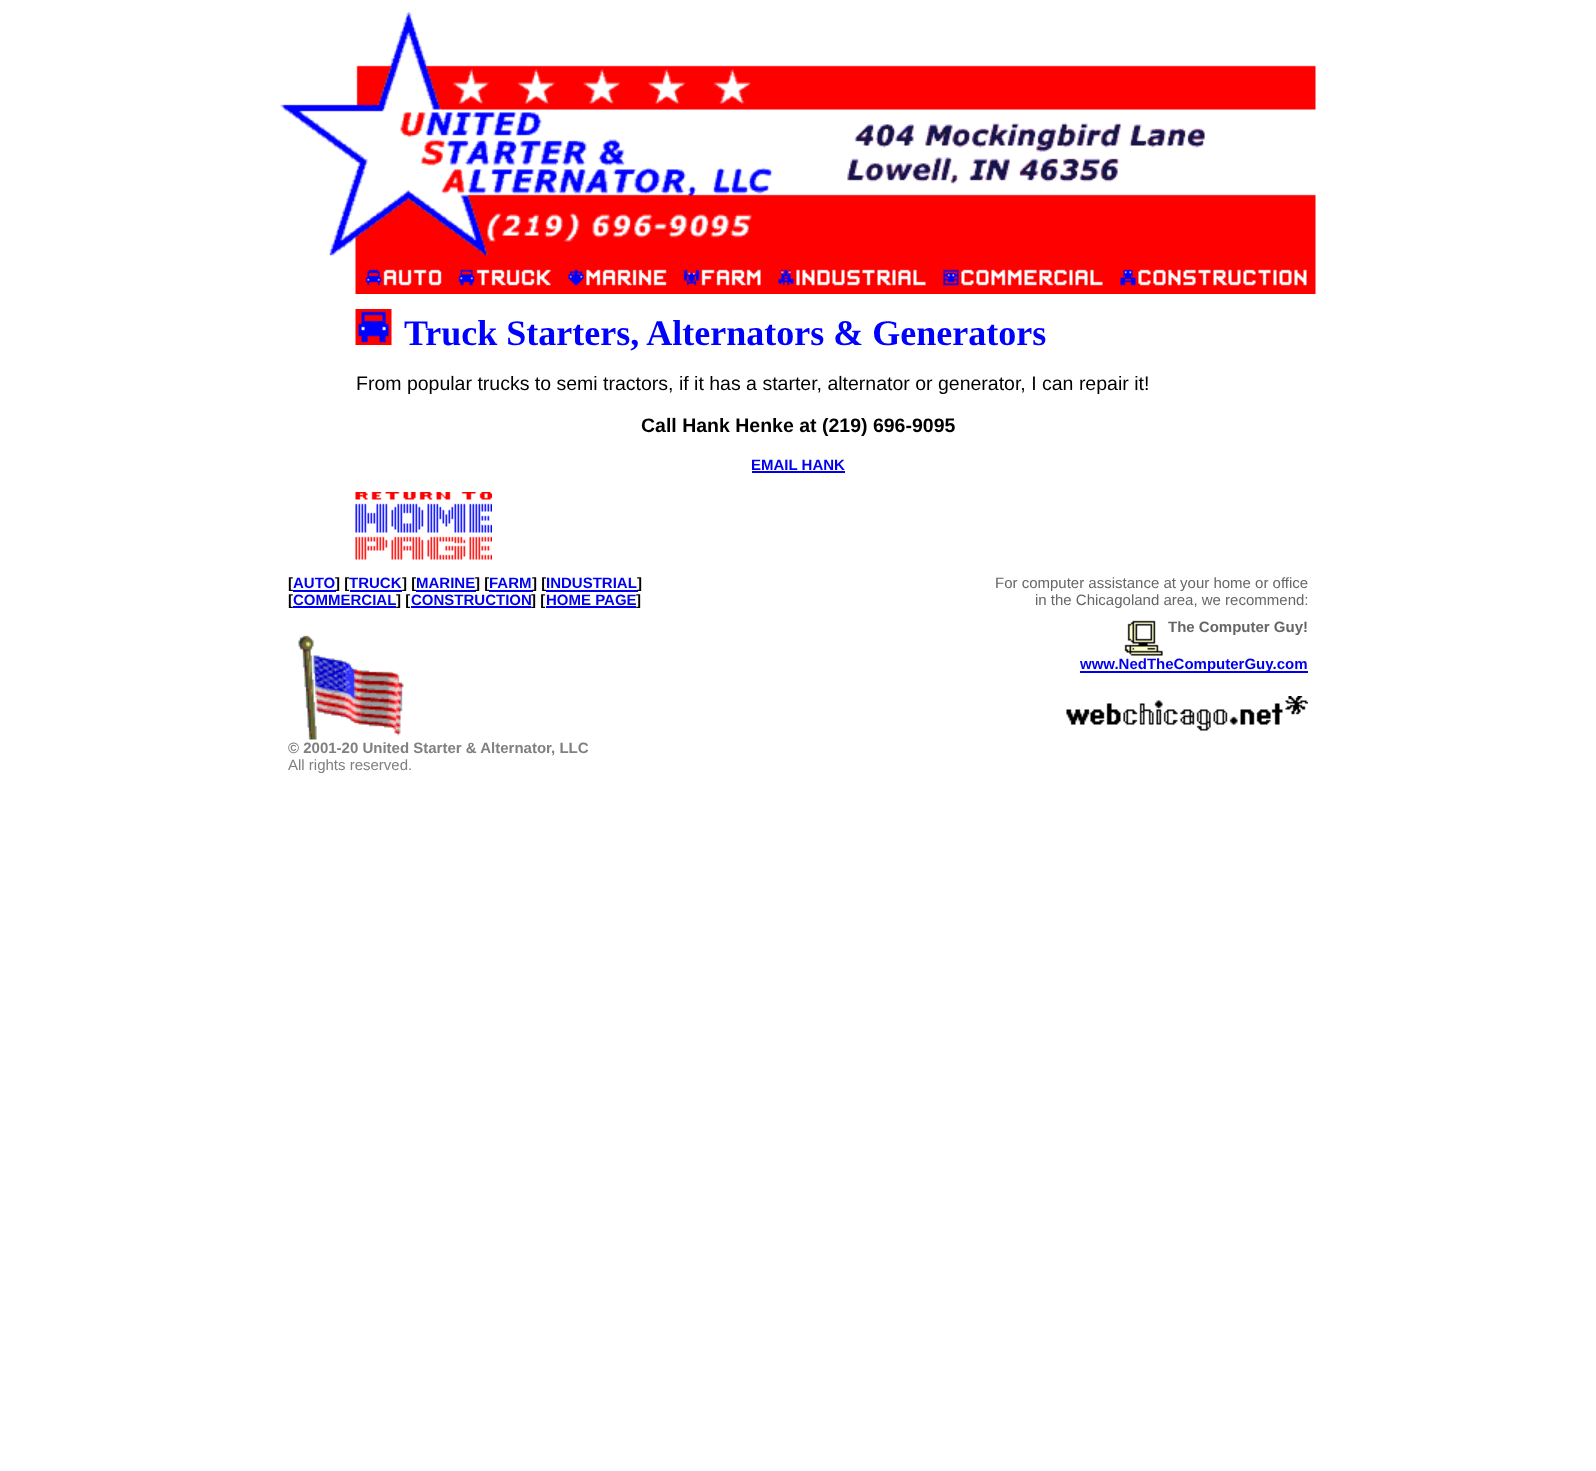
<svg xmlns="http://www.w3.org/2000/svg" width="1596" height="1471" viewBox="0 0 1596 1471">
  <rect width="100%" height="100%" fill="rgb(255,255,255)"/>
  <image x="280" y="12" width="518" height="249" href="pic1.png"/>
  <image x="798" y="65" width="518" height="196" href="pic2.png"/>
  <image x="355" y="261" width="961" height="33" href="pic3.png"/>
  <image x="355" y="309" width="37" height="36" href="pic4.png"/>
  <text x="404" y="345" font-family="Liberation Serif" font-size="36" font-weight="bold" fill="rgb(0,0,255)">Truck Starters, Alternators &amp; Generators</text>
  <text x="356" y="390" font-family="Liberation Sans" font-size="19.5" fill="rgb(0,0,0)">From popular trucks to semi tractors, if it has a starter, alternator or generator, I can repair it!</text>
  <text x="641" y="432" font-family="Liberation Sans" font-size="19.5" font-weight="bold" fill="rgb(0,0,0)">Call Hank Henke at (219) 696-9095</text>
  <text x="751" y="470" font-family="Liberation Sans" font-size="15" font-weight="bold" fill="rgb(0,0,238)">EMAIL HANK</text>
  <rect x="752" y="471" width="93" height="2" fill="rgb(0,0,238)"/>
  <image x="355" y="492" width="137" height="68" href="pic5.png"/>
  <text x="288" y="588" font-family="Liberation Sans" font-size="15" font-weight="bold" fill="rgb(0,0,0)">[</text>
  <rect x="293" y="590" width="43" height="2" fill="rgb(0,0,238)"/>
  <text x="293" y="588" font-family="Liberation Sans" font-size="15" font-weight="bold" fill="rgb(0,0,238)">AUTO</text>
  <text x="335" y="588" font-family="Liberation Sans" font-size="15" font-weight="bold" fill="rgb(0,0,0)">] [</text>
  <rect x="350" y="590" width="52" height="2" fill="rgb(0,0,238)"/>
  <text x="349" y="588" font-family="Liberation Sans" font-size="15" font-weight="bold" fill="rgb(0,0,238)">TRUCK</text>
  <text x="402" y="588" font-family="Liberation Sans" font-size="15" font-weight="bold" fill="rgb(0,0,0)">] [</text>
  <rect x="416" y="590" width="60" height="2" fill="rgb(0,0,238)"/>
  <text x="416" y="588" font-family="Liberation Sans" font-size="15" font-weight="bold" fill="rgb(0,0,238)">MARINE</text>
  <text x="475" y="588" font-family="Liberation Sans" font-size="15" font-weight="bold" fill="rgb(0,0,0)">] [</text>
  <rect x="489" y="590" width="44" height="2" fill="rgb(0,0,238)"/>
  <text x="489" y="588" font-family="Liberation Sans" font-size="15" font-weight="bold" fill="rgb(0,0,238)">FARM</text>
  <text x="532" y="588" font-family="Liberation Sans" font-size="15" font-weight="bold" fill="rgb(0,0,0)">] [</text>
  <rect x="546" y="590" width="92" height="2" fill="rgb(0,0,238)"/>
  <text x="546" y="588" font-family="Liberation Sans" font-size="15" font-weight="bold" fill="rgb(0,0,238)">INDUSTRIAL</text>
  <g font-family="Liberation Sans" font-size="15" font-weight="bold" fill="rgb(0,0,0)">
    <text x="637" y="588">]</text>
    <text x="288" y="605">[</text>
  </g>
  <rect x="293" y="606" width="103" height="2" fill="rgb(0,0,238)"/>
  <text x="293" y="605" font-family="Liberation Sans" font-size="15" font-weight="bold" fill="rgb(0,0,238)">COMMERCIAL</text>
  <text x="396" y="605" font-family="Liberation Sans" font-size="15" font-weight="bold" fill="rgb(0,0,0)">] [</text>
  <rect x="411" y="606" width="120" height="2" fill="rgb(0,0,238)"/>
  <text x="411" y="605" font-family="Liberation Sans" font-size="15" font-weight="bold" fill="rgb(0,0,238)">CONSTRUCTION</text>
  <text x="531" y="605" font-family="Liberation Sans" font-size="15" font-weight="bold" fill="rgb(0,0,0)">] [</text>
  <rect x="546" y="606" width="90" height="2" fill="rgb(0,0,238)"/>
  <text x="546" y="605" font-family="Liberation Sans" font-size="15" font-weight="bold" fill="rgb(0,0,238)">HOME PAGE</text>
  <text x="636" y="605" font-family="Liberation Sans" font-size="15" font-weight="bold" fill="rgb(0,0,0)">]</text>
  <image x="298" y="635" width="106" height="105" href="pic6.png"/>
  <text x="288" y="753" font-family="Liberation Sans" font-size="15" font-weight="bold" fill="rgb(128,128,128)">© 2001-20 United Starter &amp; Alternator, LLC</text>
  <text x="288" y="770" font-family="Liberation Sans" font-size="15" fill="rgb(128,128,128)">All rights reserved.</text>
  <g font-family="Liberation Sans" font-size="15" fill="rgb(102,102,102)">
    <text x="995" y="588">For computer assistance at your home or office</text>
    <text x="1035" y="605">in the Chicagoland area, we recommend:</text>
  </g>
  <image x="1124" y="620" width="39" height="36" href="pic7.png"/>
  <text x="1168" y="632" font-family="Liberation Sans" font-size="15" font-weight="bold" fill="rgb(102,102,102)">The Computer Guy!</text>
  <rect x="1080" y="671" width="228" height="2" fill="rgb(0,0,238)"/>
  <text x="1080" y="669" font-family="Liberation Sans" font-size="15" font-weight="bold" fill="rgb(0,0,238)">www.NedTheComputerGuy.com</text>
  <image x="1066" y="696" width="242" height="35" href="pic8.png"/>
</svg>
